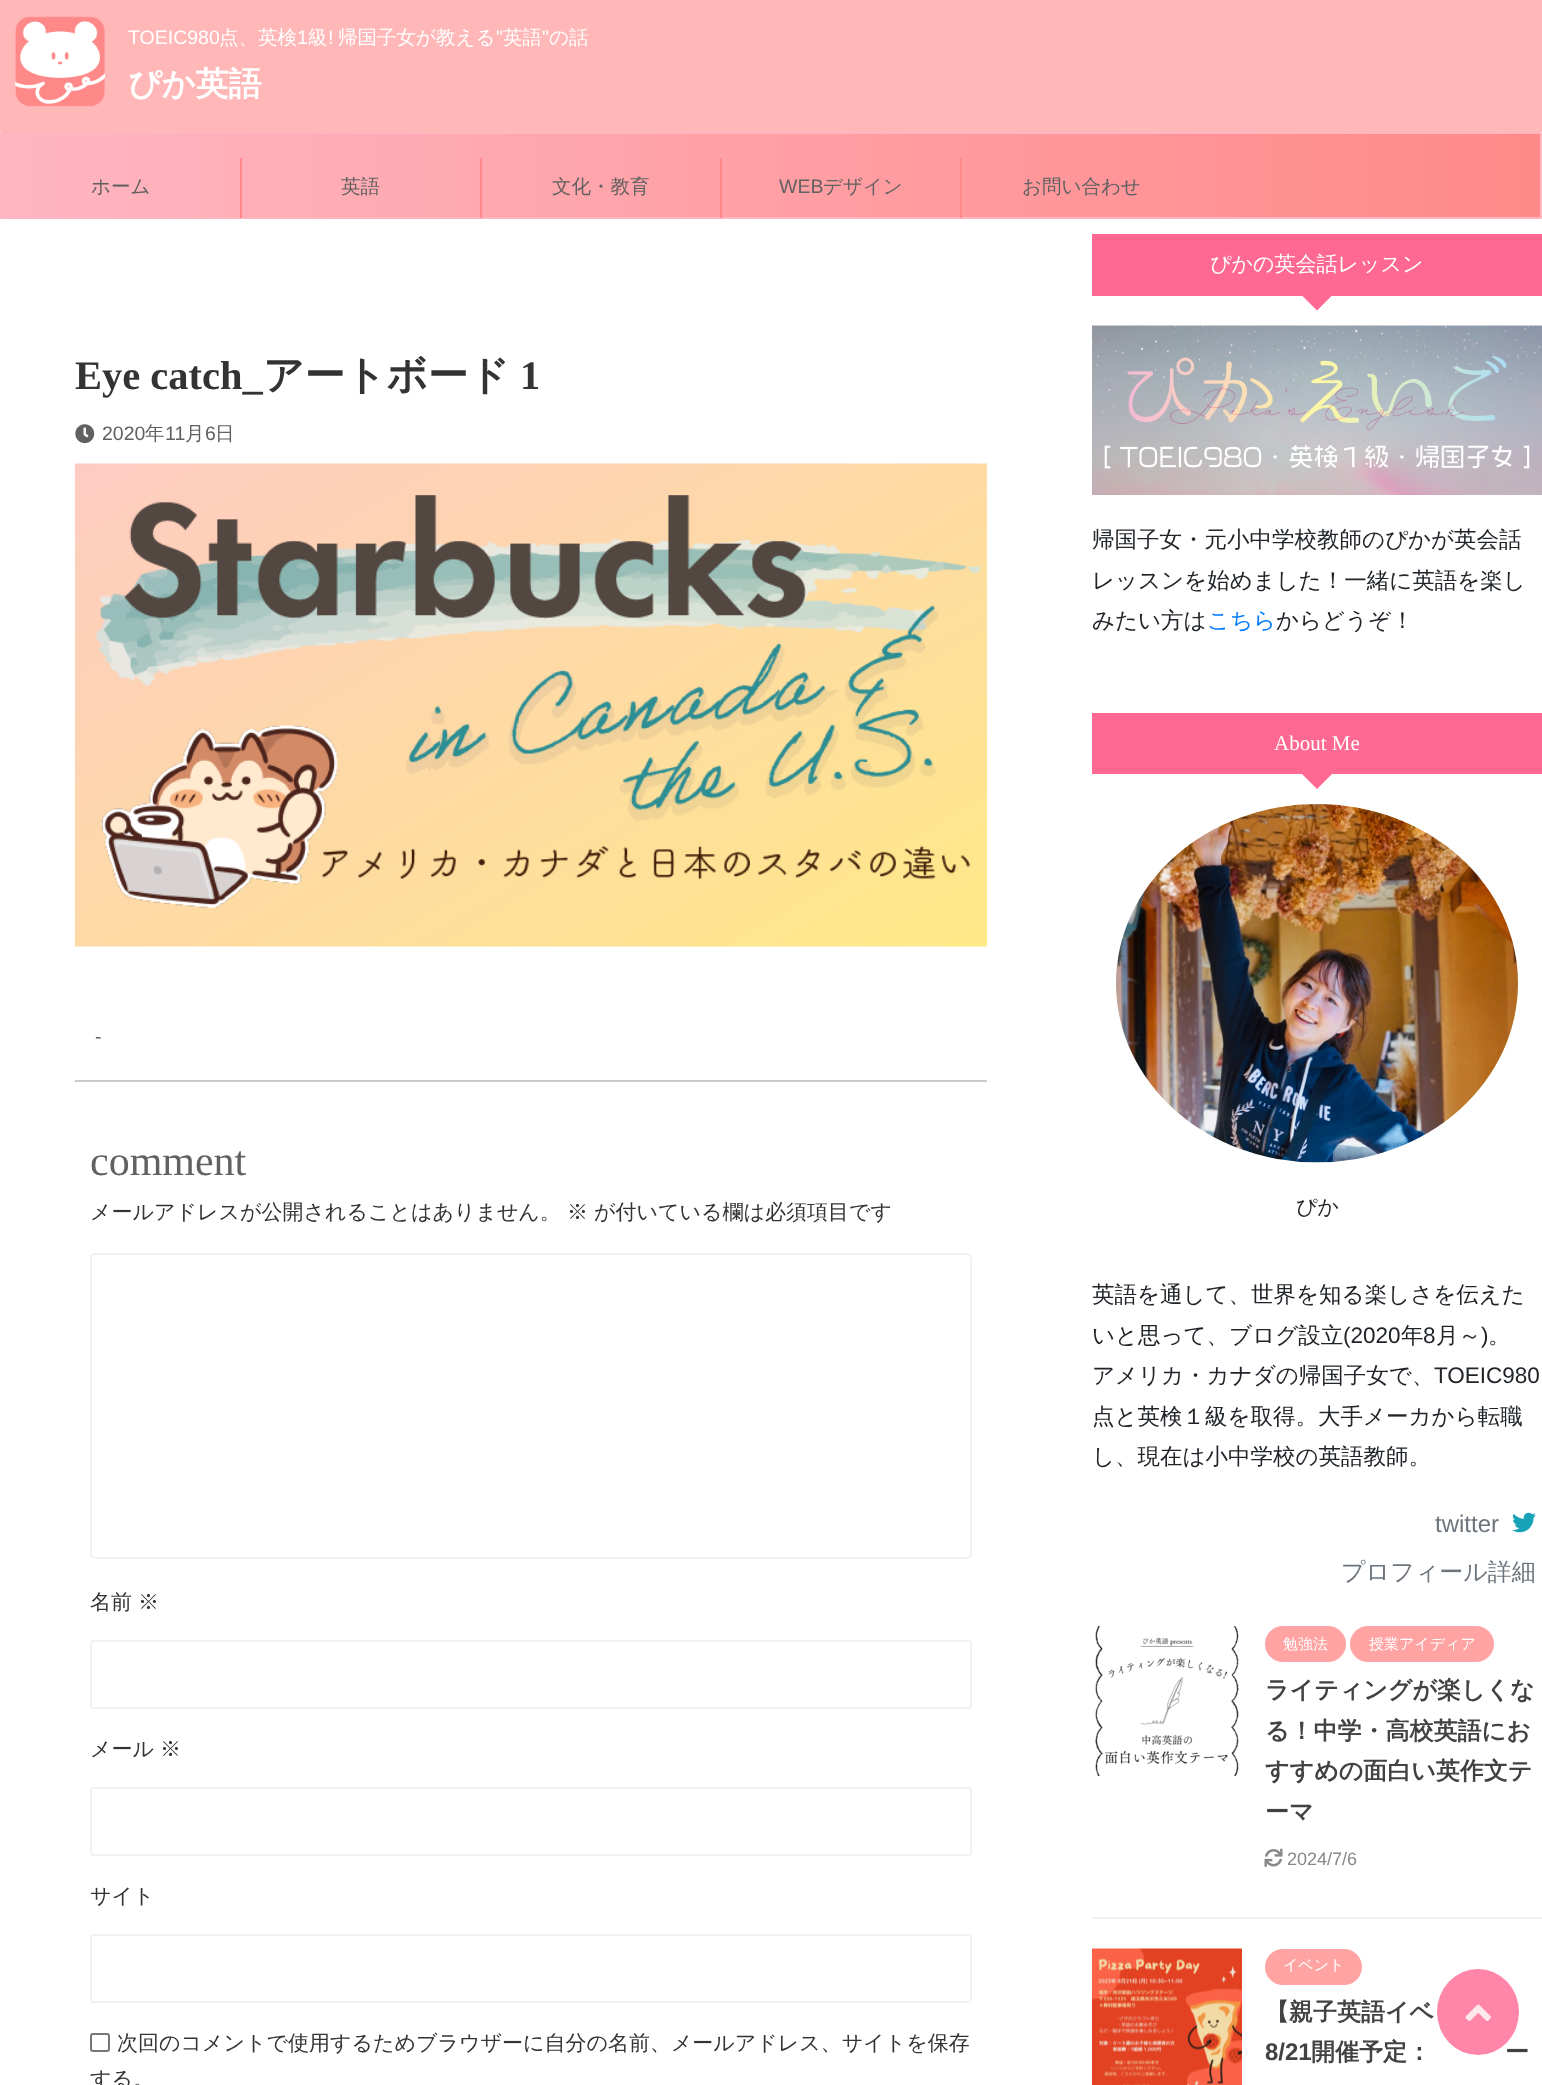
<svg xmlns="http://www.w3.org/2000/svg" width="1542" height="2085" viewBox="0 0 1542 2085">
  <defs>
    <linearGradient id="g1" gradientUnits="userSpaceOnUse" x1="1541" y1="176" x2="1.5" y2="175"><stop offset="0" stop-color="rgb(255,137,137)"/><stop offset="1" stop-color="rgb(255,182,193)"/></linearGradient>
  </defs>
  <rect width="100%" height="100%" fill="rgb(255,255,255)"/>
  <rect x="0" y="0" width="1542" height="132" fill="rgb(255,183,183)"/>
  <image x="15" y="16" width="90" height="91" href="pic1.png"/>
  <text x="128" y="44" font-family="Liberation Sans" font-size="19.5" fill="rgb(255,255,255)">TOEIC980</text>
  <text x="219" y="44" font-family="WenQuanYi Zen Hei" font-size="19.5" font-weight="500" fill="rgb(255,255,255)">点、英検</text>
  <text x="297" y="44" font-family="Liberation Sans" font-size="19.5" fill="rgb(255,255,255)">1</text>
  <text x="308" y="44" font-family="WenQuanYi Zen Hei" font-size="19.5" font-weight="500" fill="rgb(255,255,255)">級</text>
  <text x="328" y="44" font-family="Liberation Sans" font-size="19.5" fill="rgb(255,255,255)">!</text>
  <text x="338" y="44" font-family="WenQuanYi Zen Hei" font-size="19.5" font-weight="500" fill="rgb(255,255,255)">帰国子女が教える</text>
  <text x="496" y="44" font-family="Liberation Sans" font-size="19.5" fill="rgb(255,255,255)">"</text>
  <text x="503" y="44" font-family="WenQuanYi Zen Hei" font-size="19.5" font-weight="500" fill="rgb(255,255,255)">英語</text>
  <text x="542" y="44" font-family="Liberation Sans" font-size="19.5" fill="rgb(255,255,255)">"</text>
  <text x="549" y="44" font-family="WenQuanYi Zen Hei" font-size="19.5" font-weight="500" fill="rgb(255,255,255)">の話</text>
  <text x="128" y="95" font-family="WenQuanYi Zen Hei" font-size="33" font-weight="bold" fill="rgb(255,255,255)">ぴか英語</text>
  <rect x="2" y="132" width="1539" height="87" fill="url(#g1)"/>
  <rect x="1" y="133" width="1540" height="85" rx="0.5" fill="none" stroke="rgb(255,182,193)" stroke-width="2"/>
  <rect x="240" y="158" width="2" height="60" fill="rgb(255,137,137)"/>
  <text x="91" y="193" font-family="WenQuanYi Zen Hei" font-size="19.5" font-weight="500" fill="rgb(97,97,97)">ホーム</text>
  <rect x="480" y="158" width="2" height="60" fill="rgb(255,137,137)"/>
  <text x="341" y="193" font-family="WenQuanYi Zen Hei" font-size="19.5" font-weight="500" fill="rgb(97,97,97)">英語</text>
  <rect x="720" y="158" width="2" height="60" fill="rgb(255,137,137)"/>
  <text x="552" y="193" font-family="WenQuanYi Zen Hei" font-size="19.5" font-weight="500" fill="rgb(97,97,97)">文化・教育</text>
  <rect x="960" y="158" width="2" height="60" fill="rgb(255,137,137)"/>
  <text x="779" y="193" font-family="Liberation Sans" font-size="19.5" fill="rgb(97,97,97)">WEB</text>
  <g font-family="WenQuanYi Zen Hei" font-size="19.5" font-weight="500" fill="rgb(97,97,97)">
    <text x="823" y="193">デザイン</text>
    <text x="1022" y="193">お問い合わせ</text>
  </g>
  <text x="75" y="389" font-family="Liberation Serif" font-size="40.5" font-weight="bold" fill="rgb(51,51,51)">Eye catch_</text>
  <text x="263" y="389" font-family="WenQuanYi Zen Hei" font-size="40.5" font-weight="bold" fill="rgb(51,51,51)">アートボード</text>
  <text x="520" y="389" font-family="Liberation Serif" font-size="40.5" font-weight="bold" fill="rgb(51,51,51)">1</text>
  <image x="75" y="424" width="20" height="20" href="pic2.png"/>
  <text x="102" y="440" font-family="Liberation Sans" font-size="19.5" fill="rgb(97,97,97)">2020</text>
  <text x="145" y="440" font-family="WenQuanYi Zen Hei" font-size="19.5" font-weight="500" fill="rgb(97,97,97)">年</text>
  <text x="165" y="440" font-family="Liberation Sans" font-size="19.5" fill="rgb(97,97,97)">11</text>
  <text x="185" y="440" font-family="WenQuanYi Zen Hei" font-size="19.5" font-weight="500" fill="rgb(97,97,97)">月</text>
  <text x="205" y="440" font-family="Liberation Sans" font-size="19.5" fill="rgb(97,97,97)">6</text>
  <text x="215" y="440" font-family="WenQuanYi Zen Hei" font-size="19.5" font-weight="500" fill="rgb(97,97,97)">日</text>
  <image x="75" y="463" width="912" height="484" href="pic3.png"/>
  <text x="95" y="1043" font-family="Liberation Sans" font-size="19.5" fill="rgb(97,97,97)">-</text>
  <rect x="75" y="1080" width="912" height="2" fill="rgb(202,202,202)"/>
  <text x="90" y="1175" font-family="Liberation Serif" font-size="42" fill="rgb(97,97,97)">comment</text>
  <g font-family="WenQuanYi Zen Hei" font-size="21" font-weight="500" fill="rgb(51,51,51)">
    <text x="90" y="1219">メールアドレスが公開されることはありません。</text>
    <text x="567" y="1219">※</text>
    <text x="594" y="1219">が付いている欄は必須項目です</text>
  </g>
  <rect x="91" y="1254" width="880" height="304" rx="4" fill="none" stroke="rgb(242,242,242)" stroke-width="2"/>
  <g font-family="WenQuanYi Zen Hei" font-size="21" font-weight="500" fill="rgb(51,51,51)">
    <text x="90" y="1609">名前</text>
    <text x="138" y="1609">※</text>
  </g>
  <rect x="91" y="1641" width="880" height="67" rx="2" fill="none" stroke="rgb(242,242,242)" stroke-width="2"/>
  <g font-family="WenQuanYi Zen Hei" font-size="21" font-weight="500" fill="rgb(51,51,51)">
    <text x="90" y="1756">メール</text>
    <text x="160" y="1756">※</text>
  </g>
  <rect x="91" y="1788" width="880" height="67" rx="2" fill="none" stroke="rgb(242,242,242)" stroke-width="2"/>
  <text x="90" y="1903" font-family="WenQuanYi Zen Hei" font-size="21" font-weight="500" fill="rgb(51,51,51)">サイト</text>
  <rect x="91" y="1935" width="880" height="67" rx="2" fill="none" stroke="rgb(242,242,242)" stroke-width="2"/>
  <g font-family="WenQuanYi Zen Hei" font-size="21" font-weight="500" fill="rgb(51,51,51)">
    <text x="117" y="2050">次回のコメントで使用するためブラウザーに自分の名前、メールアドレス、サイトを保存</text>
    <text x="90" y="2086">する。</text>
  </g>
  <rect x="91" y="2034" width="18" height="17" rx="2" fill="none" stroke="rgb(118,118,118)" stroke-width="2"/>
  <rect x="1092" y="234" width="450" height="62" fill="rgb(255,104,147)"/>
  <text x="1210" y="271" font-family="WenQuanYi Zen Hei" font-size="21" font-weight="500" fill="rgb(255,255,255)">ぴかの英会話レッスン</text>
  <path d="M1302 295.5H1332L1317 310.5Z" fill="rgb(255,104,147)"/>
  <image x="1092" y="325" width="450" height="170" href="pic4.png"/>
  <g font-family="WenQuanYi Zen Hei" font-size="22.5" font-weight="500" fill="rgb(33,37,41)">
    <text>
      <tspan x="1092" y="547">帰国子女・元小中学校教師のぴかが英会話</tspan>
      <tspan x="1092" y="588">レッスンを始めました！一緒に英語を楽し</tspan>
      <tspan x="1092" y="628">みたい方は</tspan>
    </text>
  </g>
  <text x="1207" y="628" font-family="WenQuanYi Zen Hei" font-size="22.5" font-weight="500" fill="rgb(0,123,255)">こちら</text>
  <text x="1276" y="628" font-family="WenQuanYi Zen Hei" font-size="22.5" font-weight="500" fill="rgb(33,37,41)">からどうぞ！</text>
  <rect x="1092" y="713" width="450" height="61" fill="rgb(255,104,147)"/>
  <text x="1274" y="750" font-family="Liberation Serif" font-size="21" fill="rgb(255,255,255)">About Me</text>
  <path d="M1302 774H1332L1317 789Z" fill="rgb(255,104,147)"/>
  <image x="1116" y="804" width="402" height="359" href="pic5.png"/>
  <text x="1296" y="1214" font-family="WenQuanYi Zen Hei" font-size="21" font-weight="500" fill="rgb(33,37,41)">ぴか</text>
  <g font-family="WenQuanYi Zen Hei" font-size="22.5" font-weight="500" fill="rgb(33,37,41)">
    <text>
      <tspan x="1092" y="1302">英語を通して、世界を知る楽しさを伝えた</tspan>
      <tspan x="1092" y="1343">いと思って、ブログ設立</tspan>
    </text>
  </g>
  <text x="1343" y="1343" font-family="Liberation Sans" font-size="22.5" fill="rgb(33,37,41)">(2020</text>
  <text x="1401" y="1343" font-family="WenQuanYi Zen Hei" font-size="22.5" font-weight="500" fill="rgb(33,37,41)">年</text>
  <text x="1423" y="1343" font-family="Liberation Sans" font-size="22.5" fill="rgb(33,37,41)">8</text>
  <text x="1436" y="1343" font-family="WenQuanYi Zen Hei" font-size="22.5" font-weight="500" fill="rgb(33,37,41)">月～</text>
  <text x="1481" y="1343" font-family="Liberation Sans" font-size="22.5" fill="rgb(33,37,41)">)</text>
  <g font-family="WenQuanYi Zen Hei" font-size="22.5" font-weight="500" fill="rgb(33,37,41)">
    <text x="1488" y="1343">。</text>
    <text x="1092" y="1383">アメリカ・カナダの帰国子女で、</text>
  </g>
  <text x="1434" y="1383" font-family="Liberation Sans" font-size="22.5" fill="rgb(33,37,41)">TOEIC980</text>
  <g font-family="WenQuanYi Zen Hei" font-size="22.5" font-weight="500" fill="rgb(33,37,41)">
    <text>
      <tspan x="1092" y="1424">点と英検１級を取得。大手メーカから転職</tspan>
      <tspan x="1092" y="1464">し、現在は小中学校の英語教師。</tspan>
    </text>
  </g>
  <text x="1435" y="1532" font-family="Liberation Sans" font-size="24" fill="rgb(108,117,125)">twitter</text>
  <image x="1512" y="1512" width="24" height="21" href="pic6.png"/>
  <text x="1341" y="1580" font-family="WenQuanYi Zen Hei" font-size="24" font-weight="500" fill="rgb(108,117,125)">プロフィール詳細</text>
  <rect x="1092" y="1917" width="450" height="2" fill="rgb(243,243,243)"/>
  <image x="1095" y="1626" width="144" height="150" href="pic7.png"/>
  <rect x="1265" y="1626" width="81" height="36" rx="18" fill="rgb(255,163,163)"/>
  <text x="1283" y="1649" font-family="WenQuanYi Zen Hei" font-size="15" font-weight="500" fill="rgb(255,255,255)">勉強法</text>
  <rect x="1350" y="1626" width="144" height="36" rx="18" fill="rgb(255,163,163)"/>
  <text x="1369" y="1649" font-family="WenQuanYi Zen Hei" font-size="15" font-weight="500" fill="rgb(255,255,255)">授業アイディア</text>
  <g font-family="WenQuanYi Zen Hei" font-size="24" font-weight="bold" fill="rgb(66,66,66)">
    <text>
      <tspan x="1265" y="1698">ライティングが楽しくな</tspan>
      <tspan x="1265" y="1739">る！中学・高校英語にお</tspan>
      <tspan x="1265" y="1779">すすめの面白い英作文テ</tspan>
      <tspan x="1265" y="1820">ーマ</tspan>
    </text>
  </g>
  <image x="1264" y="1848" width="19" height="19" href="pic8.png"/>
  <text x="1287" y="1865" font-family="Liberation Sans" font-size="18" fill="rgb(136,136,136)">2024/7/6</text>
  <image x="1092" y="1948" width="150" height="137" href="pic9.png"/>
  <rect x="1265" y="1949" width="97" height="36" rx="18" fill="rgb(255,163,163)"/>
  <text x="1283" y="1970" font-family="WenQuanYi Zen Hei" font-size="15" font-weight="500" fill="rgb(255,255,255)">イベント</text>
  <text x="1265" y="2020" font-family="WenQuanYi Zen Hei" font-size="24" font-weight="bold" fill="rgb(66,66,66)">【親子英語イベ</text>
  <text x="1265" y="2060" font-family="Liberation Sans" font-size="24" font-weight="bold" fill="rgb(66,66,66)">8/21</text>
  <g font-family="WenQuanYi Zen Hei" font-size="24" font-weight="bold" fill="rgb(66,66,66)">
    <text x="1311" y="2060">開催予定：</text>
    <text x="1505" y="2060">ー</text>
  </g>
  <ellipse cx="1478" cy="2012" rx="41" ry="43" fill="rgba(255,104,147,0.8)"/>
  <image x="1465" y="2004" width="26" height="17" href="pic10.png"/>
</svg>
